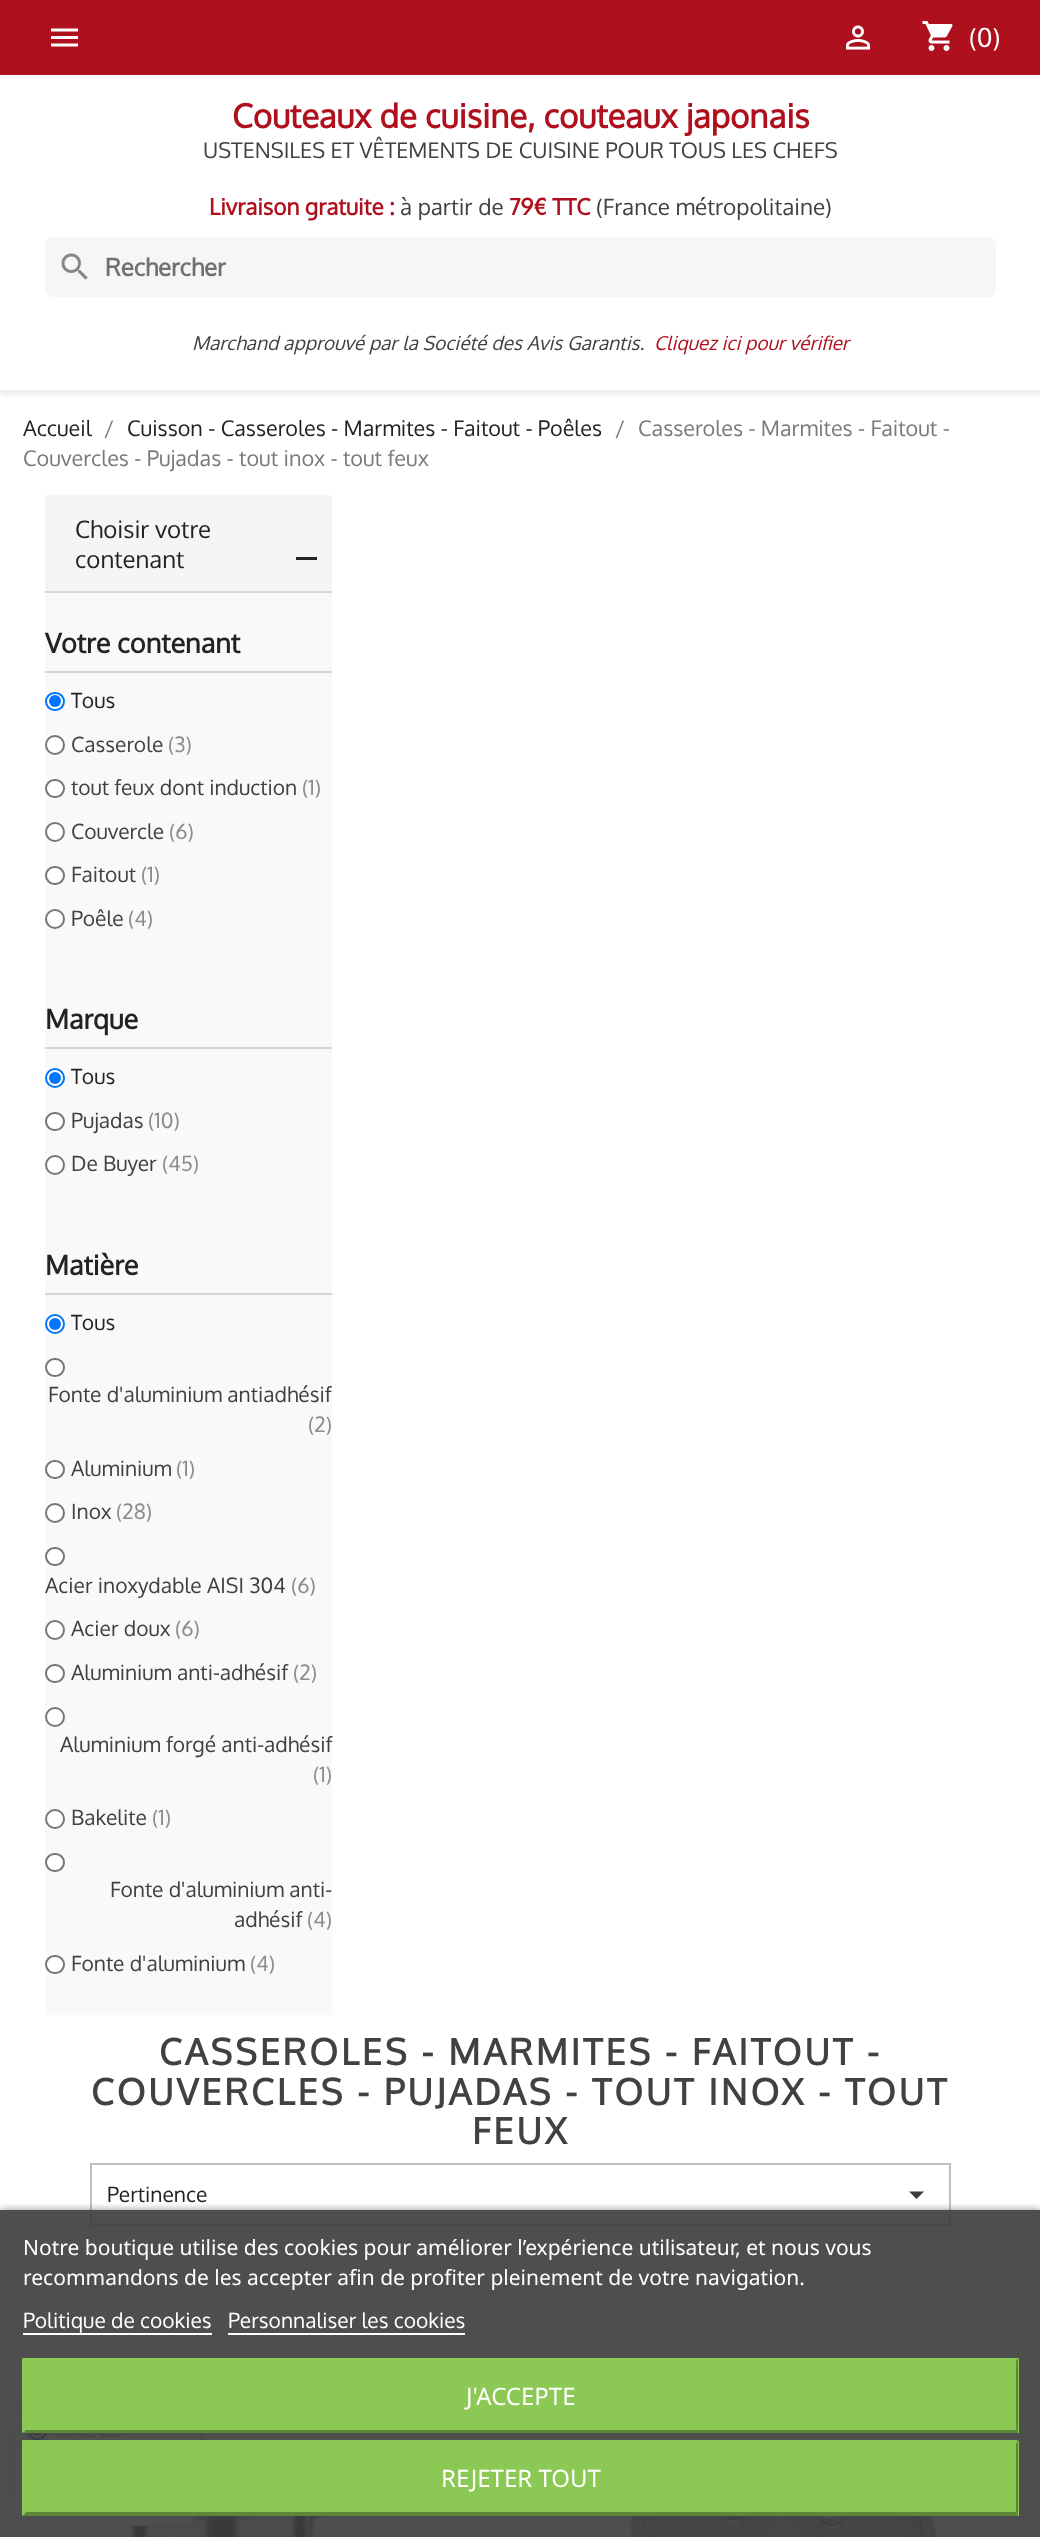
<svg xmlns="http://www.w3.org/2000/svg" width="1040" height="2537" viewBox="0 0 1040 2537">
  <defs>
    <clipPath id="clip1"><rect x="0" y="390" width="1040" height="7"/></clipPath>
    <clipPath id="clip2"><rect x="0" y="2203" width="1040" height="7"/></clipPath>
  </defs>
  <rect width="100%" height="100%" fill="rgb(255,255,255)"/>
  <g clip-path="url(#clip1)">
    <rect x="0" y="3" width="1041" height="390" fill="rgba(0,0,0,0.11)" filter="blur(4px)"/>
  </g>
  <rect x="0" y="0" width="1040" height="75" fill="rgb(174,17,29)"/>
  <image x="51" y="28" width="27" height="19" href="pic1.png"/>
  <image x="845" y="25" width="26" height="25" href="pic2.png"/>
  <image x="922" y="21" width="31" height="30" href="pic3.png"/>
  <text x="969" y="47" font-family="Oxygen" font-size="26" fill="rgb(255,255,255)">(0)</text>
  <text x="232" y="128" font-family="Oxygen" font-size="33" font-weight="bold" fill="rgb(174,17,29)">Couteaux de cuisine, couteaux japonais</text>
  <text x="203" y="158" font-family="Oxygen" font-size="21.6" fill="rgb(65,65,65)">USTENSILES ET VÊTEMENTS DE CUISINE POUR TOUS LES CHEFS</text>
  <text x="209" y="215" font-family="Oxygen" font-size="22.5" font-weight="bold" fill="rgb(174,17,29)">Livraison gratuite :</text>
  <text x="400" y="215" font-family="Oxygen" font-size="22.5" fill="rgb(65,65,65)">à partir de</text>
  <text x="509" y="215" font-family="Oxygen" font-size="22.5" font-weight="bold" fill="rgb(174,17,29)">79€ TTC</text>
  <text x="596" y="215" font-family="Oxygen" font-size="22.5" fill="rgb(65,65,65)">(France métropolitaine)</text>
  <rect x="45" y="237" width="951" height="60" rx="8" fill="rgb(246,246,246)"/>
  <image x="61" y="253" width="27" height="27" href="pic4.png"/>
  <text x="105" y="276" font-family="Oxygen" font-size="24" font-weight="bold" fill="rgb(113,113,113)">Rechercher</text>
  <text x="192" y="350" font-family="Oxygen" font-size="19.2" font-style="italic" fill="rgb(65,65,65)">Marchand approuvé par la Société des Avis Garantis.</text>
  <text x="654" y="350" font-family="Oxygen" font-size="19.2" font-style="italic" fill="rgb(174,17,29)">Cliquez ici pour vérifier</text>
  <text x="23" y="436" font-family="Oxygen" font-size="21.6" fill="rgb(35,35,35)">Accueil</text>
  <text x="104" y="436" font-family="Oxygen" font-size="21.6" fill="rgb(122,122,122)">/</text>
  <text x="127" y="436" font-family="Oxygen" font-size="21.6" fill="rgb(35,35,35)">Cuisson - Casseroles - Marmites - Faitout - Poêles</text>
  <g font-family="Oxygen" font-size="21.6" fill="rgb(122,122,122)">
    <text x="615" y="436">/</text>
    <text x="638" y="436">Casseroles - Marmites - Faitout -</text>
    <text x="23" y="466">Couvercles - Pujadas - tout inox - tout feux</text>
  </g>
  <rect x="45" y="495" width="287" height="96" fill="rgb(245,245,245)"/>
  <rect x="45" y="591" width="287" height="2" fill="rgb(214,214,214)"/>
  <g font-family="Oxygen" font-size="24" fill="rgb(35,35,35)">
    <text>
      <tspan x="75" y="538">Choisir votre</tspan>
      <tspan x="75" y="568">contenant</tspan>
    </text>
  </g>
  <rect x="296" y="557" width="21" height="3" fill="rgb(35,35,35)"/>
  <rect x="45" y="593" width="287" height="1422" fill="rgb(249,249,249)"/>
  <rect x="45" y="671" width="287" height="2" fill="rgb(214,212,212)"/>
  <text x="45" y="653" font-family="Oxygen" font-size="27" font-weight="bold" fill="rgb(35,35,35)">Votre contenant</text>
  <rect x="46" y="693" width="18" height="17" rx="8.5" fill="rgb(255,255,255)" stroke="rgb(0,117,255)" stroke-width="2"/>
  <circle cx="55" cy="701" r="6" fill="rgb(0,117,255)"/>
  <text x="71" y="708" font-family="Oxygen" font-size="21" fill="rgb(35,35,35)">Tous</text>
  <circle cx="55" cy="745" r="9" fill="rgb(255,255,255)" stroke="rgb(118,118,118)" stroke-width="2"/>
  <text x="71" y="752" font-family="Oxygen" font-size="21" fill="rgb(65,65,65)">Casserole</text>
  <text x="168" y="752" font-family="Oxygen" font-size="21" fill="rgb(139,139,139)">(3)</text>
  <rect x="46" y="780" width="18" height="17" rx="8.5" fill="rgb(255,255,255)" stroke="rgb(118,118,118)" stroke-width="2"/>
  <text x="71" y="795" font-family="Oxygen" font-size="21" fill="rgb(65,65,65)">tout feux dont induction</text>
  <text x="302" y="795" font-family="Oxygen" font-size="21" fill="rgb(139,139,139)">(1)</text>
  <circle cx="55" cy="832" r="9" fill="rgb(255,255,255)" stroke="rgb(118,118,118)" stroke-width="2"/>
  <text x="71" y="839" font-family="Oxygen" font-size="21" fill="rgb(65,65,65)">Couvercle</text>
  <text x="169" y="839" font-family="Oxygen" font-size="21" fill="rgb(139,139,139)">(6)</text>
  <rect x="46" y="867" width="18" height="17" rx="8.5" fill="rgb(255,255,255)" stroke="rgb(118,118,118)" stroke-width="2"/>
  <text x="71" y="882" font-family="Oxygen" font-size="21" fill="rgb(65,65,65)">Faitout</text>
  <text x="141" y="882" font-family="Oxygen" font-size="21" fill="rgb(139,139,139)">(1)</text>
  <circle cx="55" cy="919" r="9" fill="rgb(255,255,255)" stroke="rgb(118,118,118)" stroke-width="2"/>
  <text x="71" y="926" font-family="Oxygen" font-size="21" fill="rgb(65,65,65)">Poêle</text>
  <text x="128" y="926" font-family="Oxygen" font-size="21" fill="rgb(139,139,139)">(4)</text>
  <rect x="45" y="1047" width="287" height="2" fill="rgb(214,212,212)"/>
  <text x="45" y="1029" font-family="Oxygen" font-size="27" font-weight="bold" fill="rgb(35,35,35)">Marque</text>
  <circle cx="55" cy="1078" r="9" fill="rgb(255,255,255)" stroke="rgb(0,117,255)" stroke-width="2"/>
  <circle cx="55" cy="1078" r="6" fill="rgb(0,117,255)"/>
  <text x="71" y="1084" font-family="Oxygen" font-size="21" fill="rgb(35,35,35)">Tous</text>
  <rect x="46" y="1113" width="18" height="17" rx="8.5" fill="rgb(255,255,255)" stroke="rgb(118,118,118)" stroke-width="2"/>
  <text x="71" y="1128" font-family="Oxygen" font-size="21" fill="rgb(65,65,65)">Pujadas</text>
  <text x="148" y="1128" font-family="Oxygen" font-size="21" fill="rgb(139,139,139)">(10)</text>
  <circle cx="55" cy="1165" r="9" fill="rgb(255,255,255)" stroke="rgb(118,118,118)" stroke-width="2"/>
  <text x="71" y="1171" font-family="Oxygen" font-size="21" fill="rgb(65,65,65)">De Buyer</text>
  <text x="162" y="1171" font-family="Oxygen" font-size="21" fill="rgb(139,139,139)">(45)</text>
  <rect x="45" y="1293" width="287" height="2" fill="rgb(214,212,212)"/>
  <text x="45" y="1275" font-family="Oxygen" font-size="27" font-weight="bold" fill="rgb(35,35,35)">Matière</text>
  <circle cx="55" cy="1324" r="9" fill="rgb(255,255,255)" stroke="rgb(0,117,255)" stroke-width="2"/>
  <circle cx="55" cy="1324" r="6" fill="rgb(0,117,255)"/>
  <text x="71" y="1330" font-family="Oxygen" font-size="21" fill="rgb(35,35,35)">Tous</text>
  <rect x="46" y="1359" width="18" height="17" rx="8.5" fill="rgb(255,255,255)" stroke="rgb(118,118,118)" stroke-width="2"/>
  <text x="48" y="1402" font-family="Oxygen" font-size="21" fill="rgb(65,65,65)">Fonte d'aluminium antiadhésif</text>
  <text x="308" y="1432" font-family="Oxygen" font-size="21" fill="rgb(139,139,139)">(2)</text>
  <rect x="46" y="1461" width="18" height="17" rx="8.5" fill="rgb(255,255,255)" stroke="rgb(118,118,118)" stroke-width="2"/>
  <text x="71" y="1476" font-family="Oxygen" font-size="21" fill="rgb(65,65,65)">Aluminium</text>
  <text x="176" y="1476" font-family="Oxygen" font-size="21" fill="rgb(139,139,139)">(1)</text>
  <circle cx="55" cy="1513" r="9" fill="rgb(255,255,255)" stroke="rgb(118,118,118)" stroke-width="2"/>
  <text x="71" y="1519" font-family="Oxygen" font-size="21" fill="rgb(65,65,65)">Inox</text>
  <text x="116" y="1519" font-family="Oxygen" font-size="21" fill="rgb(139,139,139)">(28)</text>
  <rect x="46" y="1548" width="18" height="17" rx="8.5" fill="rgb(255,255,255)" stroke="rgb(118,118,118)" stroke-width="2"/>
  <text x="45" y="1593" font-family="Oxygen" font-size="21" fill="rgb(65,65,65)">Acier inoxydable AISI 304</text>
  <text x="291" y="1593" font-family="Oxygen" font-size="21" fill="rgb(139,139,139)">(6)</text>
  <circle cx="55" cy="1630" r="9" fill="rgb(255,255,255)" stroke="rgb(118,118,118)" stroke-width="2"/>
  <text x="71" y="1636" font-family="Oxygen" font-size="21" fill="rgb(65,65,65)">Acier doux</text>
  <text x="175" y="1636" font-family="Oxygen" font-size="21" fill="rgb(139,139,139)">(6)</text>
  <rect x="46" y="1665" width="18" height="17" rx="8.5" fill="rgb(255,255,255)" stroke="rgb(118,118,118)" stroke-width="2"/>
  <text x="71" y="1680" font-family="Oxygen" font-size="21" fill="rgb(65,65,65)">Aluminium anti-adhésif</text>
  <text x="293" y="1680" font-family="Oxygen" font-size="21" fill="rgb(139,139,139)">(2)</text>
  <circle cx="55" cy="1717" r="9" fill="rgb(255,255,255)" stroke="rgb(118,118,118)" stroke-width="2"/>
  <text x="60" y="1752" font-family="Oxygen" font-size="21" fill="rgb(65,65,65)">Aluminium forgé anti-adhésif</text>
  <text x="313" y="1782" font-family="Oxygen" font-size="21" fill="rgb(139,139,139)">(1)</text>
  <circle cx="55" cy="1819" r="9" fill="rgb(255,255,255)" stroke="rgb(118,118,118)" stroke-width="2"/>
  <text x="71" y="1825" font-family="Oxygen" font-size="21" fill="rgb(65,65,65)">Bakelite</text>
  <text x="152" y="1825" font-family="Oxygen" font-size="21" fill="rgb(139,139,139)">(1)</text>
  <rect x="46" y="1854" width="18" height="17" rx="8.5" fill="rgb(255,255,255)" stroke="rgb(118,118,118)" stroke-width="2"/>
  <g font-family="Oxygen" font-size="21" fill="rgb(65,65,65)">
    <text x="110" y="1897">Fonte d'aluminium anti-</text>
    <text x="234" y="1927">adhésif</text>
  </g>
  <text x="307" y="1927" font-family="Oxygen" font-size="21" fill="rgb(139,139,139)">(4)</text>
  <rect x="46" y="1956" width="18" height="17" rx="8.5" fill="rgb(255,255,255)" stroke="rgb(118,118,118)" stroke-width="2"/>
  <text x="71" y="1971" font-family="Oxygen" font-size="21" fill="rgb(65,65,65)">Fonte d'aluminium</text>
  <text x="250" y="1971" font-family="Oxygen" font-size="21" fill="rgb(139,139,139)">(4)</text>
  <g font-family="Oxygen" font-size="36" font-weight="bold" letter-spacing="3" fill="rgb(65,65,65)">
    <text x="159" y="2065">CASSEROLES - MARMITES - FAITOUT -</text>
    <text x="91" y="2105">COUVERCLES - PUJADAS - TOUT INOX - TOUT</text>
    <text x="472" y="2144">FEUX</text>
  </g>
  <rect x="91" y="2164" width="859" height="61" fill="none" stroke="rgb(191,191,191)" stroke-width="2"/>
  <text x="107" y="2202" font-family="Oxygen" font-size="21" fill="rgb(35,35,35)">Pertinence</text>
  <path d="M909 2191.5H924L916.5 2199Z" fill="rgb(60,60,60)"/>
  <image x="120" y="2516" width="348" height="21" href="pic5.png"/>
  <image x="626" y="2516" width="312" height="21" href="pic6.png"/>
  <rect x="12" y="2406" width="188" height="120" rx="24" fill="rgba(0,0,0,0.25)" filter="blur(5px)"/>
  <rect x="12" y="2406" width="188" height="120" rx="24" fill="rgb(255,255,255)"/>
  <image x="27" y="2433" width="94" height="7" href="pic7.png"/>
  <g clip-path="url(#clip2)">
    <rect x="0" y="2211" width="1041" height="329" fill="rgb(112,112,112)" filter="blur(4px)"/>
  </g>
  <rect x="0" y="2210" width="1040" height="327" fill="rgba(59,59,59,0.9)"/>
  <g font-family="Noto Sans" font-size="21" fill="rgb(255,255,255)">
    <text>
      <tspan x="23" y="2255">Notre boutique utilise des cookies pour améliorer l’expérience utilisateur, et nous vous</tspan>
      <tspan x="23" y="2285">recommandons de les accepter afin de profiter pleinement de votre navigation.</tspan>
    </text>
  </g>
  <text x="23" y="2328" font-family="Oxygen" font-size="21" fill="rgb(255,255,255)">Politique de cookies</text>
  <rect x="23" y="2333" width="189" height="2" fill="rgb(255,255,255)"/>
  <text x="228" y="2328" font-family="Oxygen" font-size="21" fill="rgb(255,255,255)">Personnaliser les cookies</text>
  <rect x="228" y="2333" width="237" height="2" fill="rgb(255,255,255)"/>
  <rect x="23" y="2358" width="996" height="75" fill="rgb(139,201,84)"/>
  <path d="M22 2358H1018L1016 2361H26Z" fill="rgb(139,201,84)"/>
  <path d="M1018 2358V2433L1016 2430V2361Z" fill="rgb(93,134,56)"/>
  <path d="M1018 2433H22L26 2430H1016Z" fill="rgb(93,134,56)"/>
  <path d="M22 2433V2358L26 2361V2430Z" fill="rgb(139,201,84)"/>
  <text x="466" y="2405" font-family="Noto Sans" font-size="24" fill="rgb(255,255,255)">J'ACCEPTE</text>
  <rect x="23" y="2441" width="996" height="75" fill="rgb(139,201,84)"/>
  <path d="M22 2440H1018L1016 2444H26Z" fill="rgb(139,201,84)"/>
  <path d="M1018 2440V2516L1016 2512V2444Z" fill="rgb(93,134,56)"/>
  <path d="M1018 2516H22L26 2512H1016Z" fill="rgb(93,134,56)"/>
  <path d="M22 2516V2440L26 2444V2512Z" fill="rgb(139,201,84)"/>
  <text x="441" y="2487" font-family="Noto Sans" font-size="24" fill="rgb(255,255,255)">REJETER TOUT</text>
</svg>
